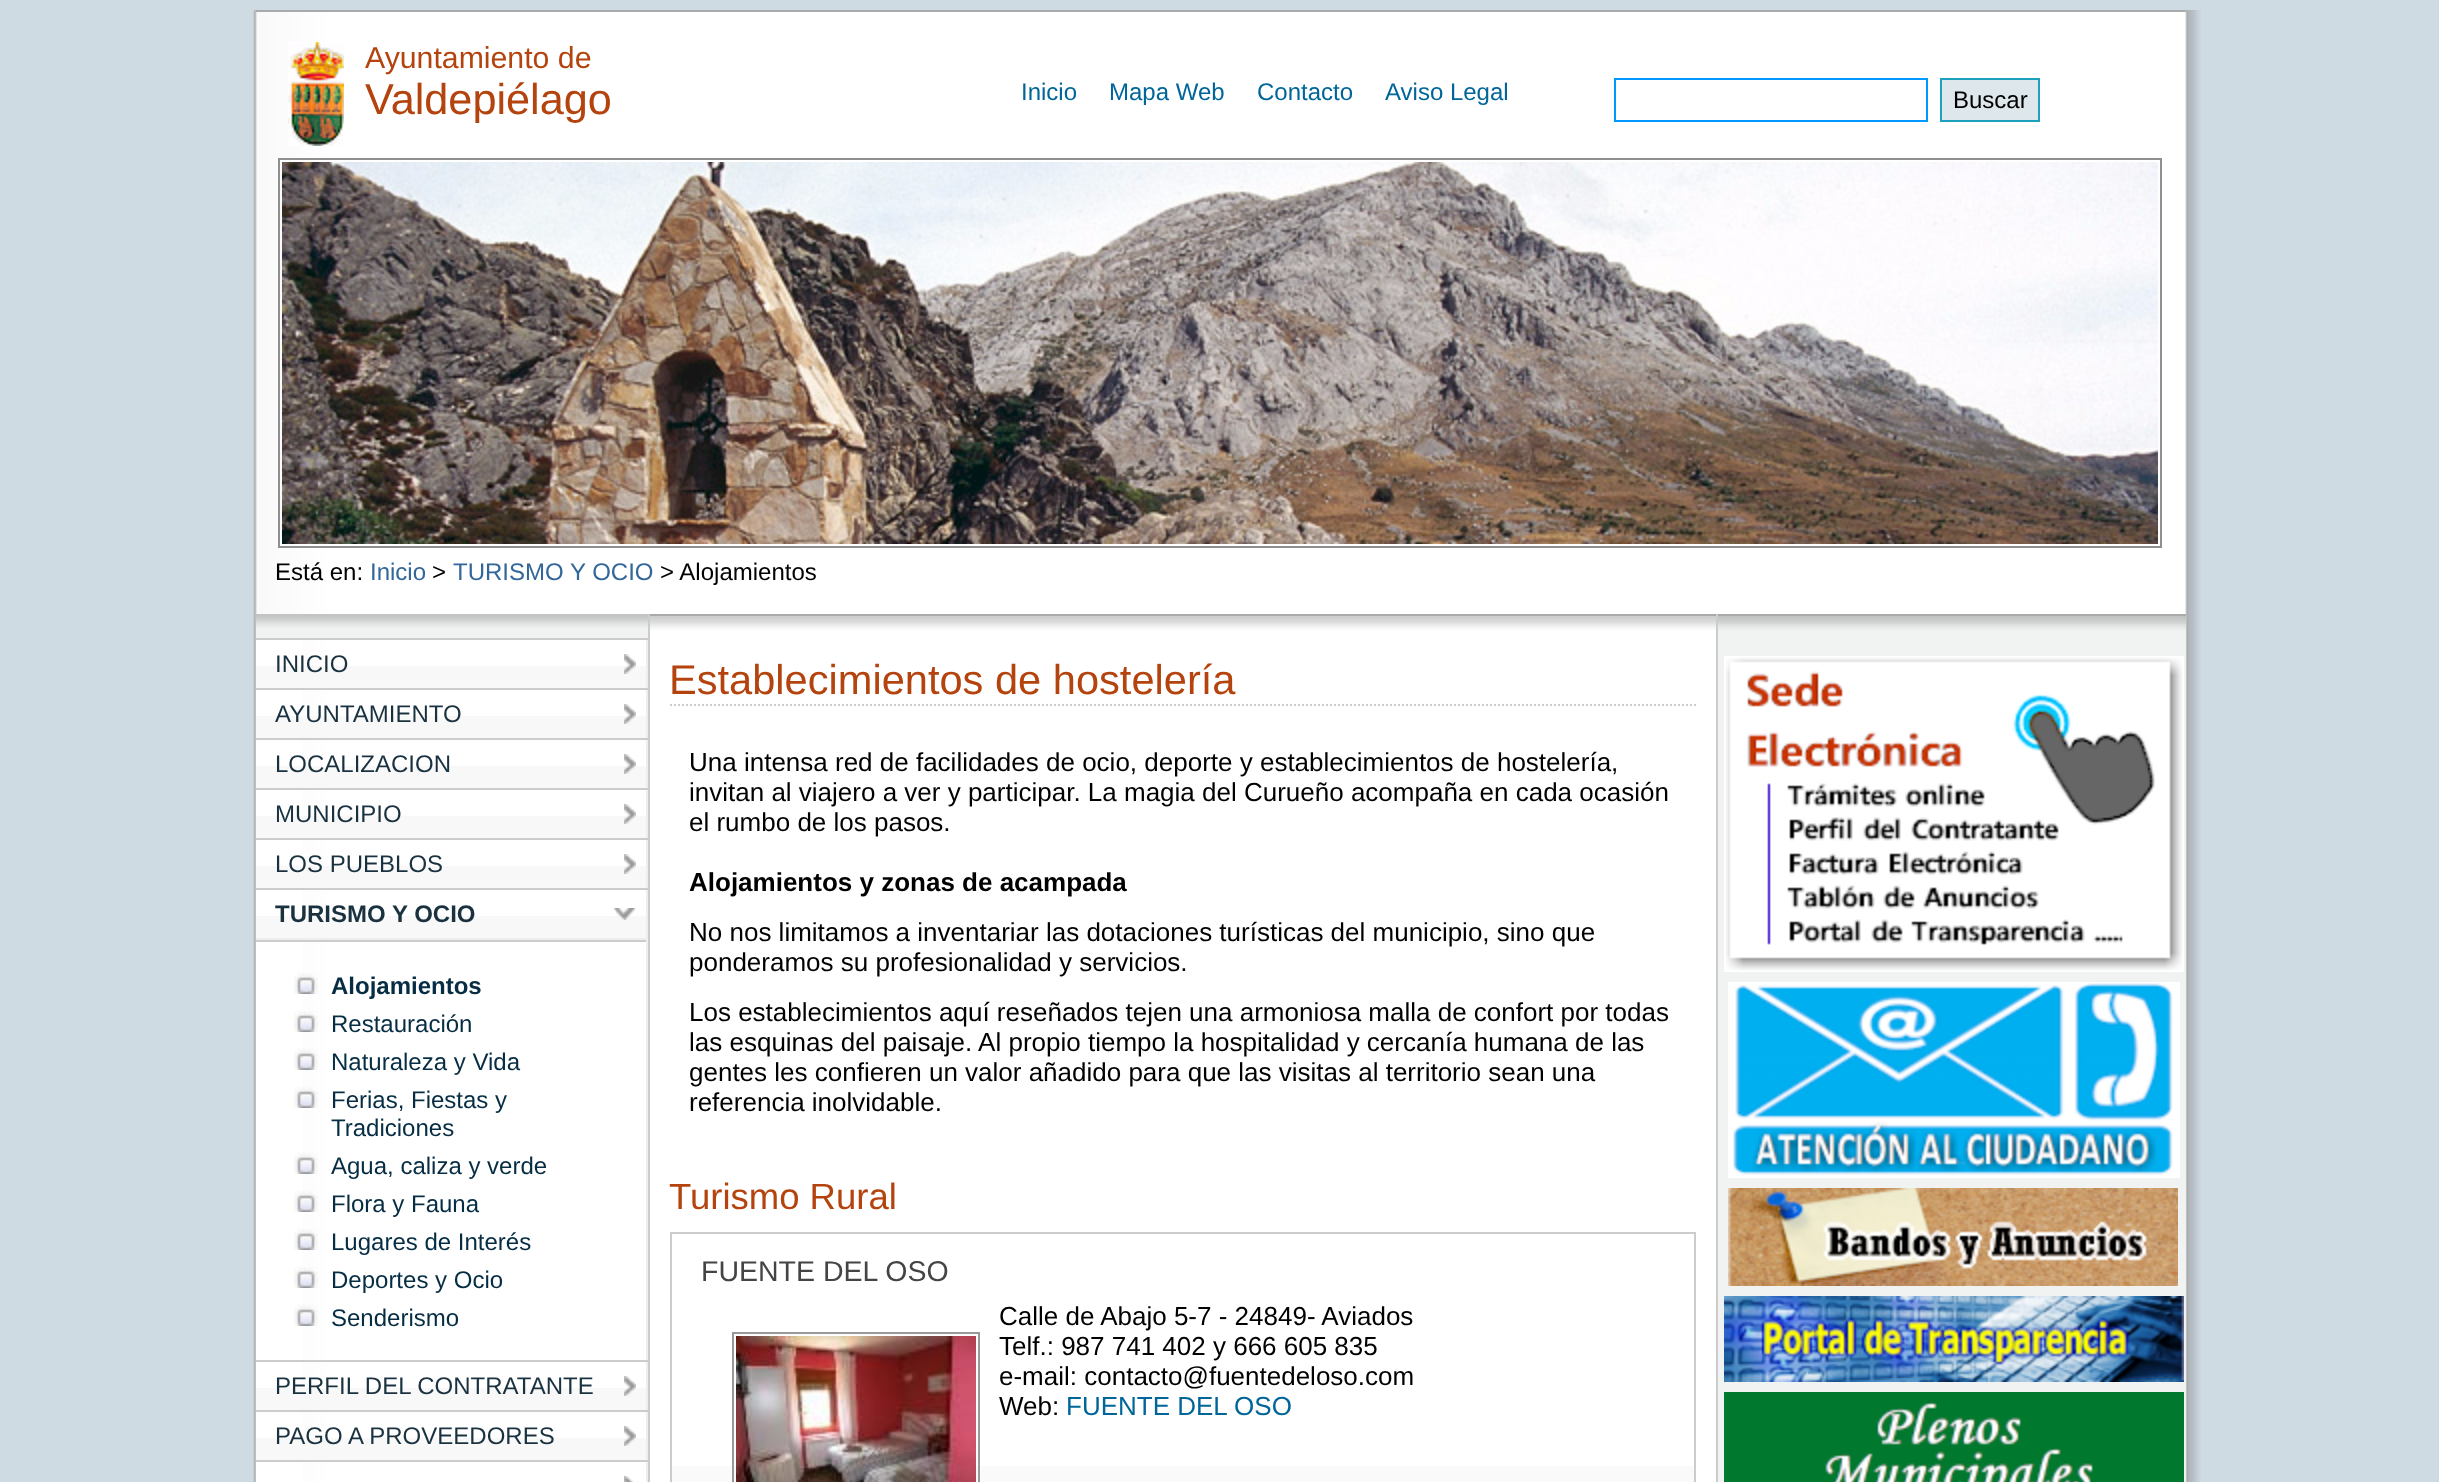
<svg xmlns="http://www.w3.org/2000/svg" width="2439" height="1482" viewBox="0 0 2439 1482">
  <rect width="100%" height="100%" fill="rgb(206,219,227)"/>
  <image x="253" y="10" width="1948" height="1472" href="pic1.png"/>
  <rect x="256" y="10" width="1930" height="2" fill="rgb(170,170,170)"/>
  <image x="288" y="42" width="56" height="104" href="pic2.png"/>
  <text x="365" y="68" font-family="Liberation Sans" font-size="30.25" fill="rgb(180,67,13)">Ayuntamiento de</text>
  <text x="365" y="114" font-family="Liberation Sans" font-size="43.25" fill="rgb(180,67,13)">Valdepiélago</text>
  <g font-family="Liberation Sans" font-size="24" fill="rgb(0,102,153)">
    <text x="1021" y="100">Inicio</text>
    <text x="1109" y="100">Mapa Web</text>
    <text x="1257" y="100">Contacto</text>
    <text x="1385" y="100">Aviso Legal</text>
  </g>
  <rect x="1615" y="79" width="312" height="42" fill="none" stroke="rgb(0,153,255)" stroke-width="2"/>
  <rect x="1941" y="79" width="98" height="42" fill="rgb(221,231,236)" stroke="rgb(29,161,188)" stroke-width="2"/>
  <text x="1953" y="108" font-family="Liberation Sans" font-size="24" fill="rgb(0,0,0)">Buscar</text>
  <rect x="279" y="159" width="1882" height="388" fill="none" stroke="rgb(143,143,143)" stroke-width="2"/>
  <image x="282" y="162" width="1876" height="382" href="pic3.png"/>
  <text x="275" y="580" font-family="Liberation Sans" font-size="24" fill="rgb(0,0,0)">Está en:</text>
  <text x="370" y="580" font-family="Liberation Sans" font-size="24" fill="rgb(51,102,153)">Inicio</text>
  <text x="432" y="580" font-family="Liberation Sans" font-size="24" fill="rgb(0,0,0)">&gt;</text>
  <text x="453" y="580" font-family="Liberation Sans" font-size="24" fill="rgb(51,102,153)">TURISMO Y OCIO</text>
  <text x="660" y="580" font-family="Liberation Sans" font-size="24" fill="rgb(0,0,0)">&gt; Alojamientos</text>
  <rect x="256" y="628" width="392" height="10" fill="rgb(241,242,242)"/>
  <image x="256" y="614" width="392" height="14" href="pic4.png"/>
  <rect x="648" y="614" width="2" height="868" fill="rgb(204,204,204)"/>
  <rect x="256" y="638" width="392" height="2" fill="rgb(204,204,204)"/>
  <rect x="256" y="688" width="392" height="2" fill="rgb(204,204,204)"/>
  <rect x="256" y="640" width="46" height="26" fill="rgb(255,255,255)"/>
  <rect x="256" y="666" width="390" height="22" fill="rgb(248,248,248)"/>
  <rect x="646" y="640" width="2" height="48" fill="rgb(238,238,238)"/>
  <image x="624" y="654" width="12" height="20" href="pic5.png"/>
  <text x="275" y="672" font-family="Liberation Sans" font-size="24" fill="rgb(26,50,64)">INICIO</text>
  <rect x="256" y="738" width="392" height="2" fill="rgb(204,204,204)"/>
  <rect x="256" y="690" width="46" height="26" fill="rgb(255,255,255)"/>
  <rect x="256" y="716" width="390" height="22" fill="rgb(248,248,248)"/>
  <rect x="646" y="690" width="2" height="48" fill="rgb(238,238,238)"/>
  <image x="624" y="704" width="12" height="20" href="pic5.png"/>
  <text x="275" y="722" font-family="Liberation Sans" font-size="24" fill="rgb(26,50,64)">AYUNTAMIENTO</text>
  <rect x="256" y="788" width="392" height="2" fill="rgb(204,204,204)"/>
  <rect x="256" y="740" width="46" height="26" fill="rgb(255,255,255)"/>
  <rect x="256" y="766" width="390" height="22" fill="rgb(248,248,248)"/>
  <rect x="646" y="740" width="2" height="48" fill="rgb(238,238,238)"/>
  <image x="624" y="754" width="12" height="20" href="pic5.png"/>
  <text x="275" y="772" font-family="Liberation Sans" font-size="24" fill="rgb(26,50,64)">LOCALIZACION</text>
  <rect x="256" y="838" width="392" height="2" fill="rgb(204,204,204)"/>
  <rect x="256" y="790" width="46" height="26" fill="rgb(255,255,255)"/>
  <rect x="256" y="816" width="390" height="22" fill="rgb(248,248,248)"/>
  <rect x="646" y="790" width="2" height="48" fill="rgb(238,238,238)"/>
  <image x="624" y="804" width="12" height="20" href="pic5.png"/>
  <text x="275" y="822" font-family="Liberation Sans" font-size="24" fill="rgb(26,50,64)">MUNICIPIO</text>
  <rect x="256" y="888" width="392" height="2" fill="rgb(204,204,204)"/>
  <rect x="256" y="840" width="46" height="26" fill="rgb(255,255,255)"/>
  <rect x="256" y="866" width="390" height="22" fill="rgb(248,248,248)"/>
  <rect x="646" y="840" width="2" height="48" fill="rgb(238,238,238)"/>
  <image x="624" y="854" width="12" height="20" href="pic5.png"/>
  <text x="275" y="872" font-family="Liberation Sans" font-size="24" fill="rgb(26,50,64)">LOS PUEBLOS</text>
  <rect x="256" y="1360" width="392" height="2" fill="rgb(204,204,204)"/>
  <rect x="256" y="890" width="46" height="26" fill="rgb(255,255,255)"/>
  <rect x="256" y="916" width="390" height="22" fill="rgb(248,248,248)"/>
  <rect x="646" y="890" width="2" height="50" fill="rgb(238,238,238)"/>
  <rect x="256" y="938" width="392" height="2" fill="rgb(238,238,238)"/>
  <image x="614" y="908" width="22" height="12" href="pic6.png"/>
  <text x="275" y="922" font-family="Liberation Sans" font-size="24" font-weight="bold" fill="rgb(26,50,64)">TURISMO Y OCIO</text>
  <rect x="256" y="942" width="46" height="418" fill="rgb(255,255,255)"/>
  <rect x="256" y="940" width="392" height="2" fill="rgb(204,204,204)"/>
  <rect x="646" y="940" width="2" height="420" fill="rgb(238,238,238)"/>
  <image x="294" y="972" width="24" height="22" href="pic7.png"/>
  <text x="331" y="994" font-family="Liberation Sans" font-size="24" font-weight="bold" fill="rgb(6,45,67)">Alojamientos</text>
  <image x="294" y="1010" width="24" height="22" href="pic7.png"/>
  <text x="331" y="1032" font-family="Liberation Sans" font-size="24" fill="rgb(6,45,67)">Restauración</text>
  <image x="294" y="1048" width="24" height="22" href="pic7.png"/>
  <text x="331" y="1070" font-family="Liberation Sans" font-size="24" fill="rgb(6,45,67)">Naturaleza y Vida</text>
  <image x="294" y="1086" width="24" height="22" href="pic7.png"/>
  <g font-family="Liberation Sans" font-size="24" fill="rgb(6,45,67)">
    <text>
      <tspan x="331" y="1108">Ferias, Fiestas y</tspan>
      <tspan x="331" y="1136">Tradiciones</tspan>
    </text>
  </g>
  <image x="294" y="1152" width="24" height="22" href="pic7.png"/>
  <text x="331" y="1174" font-family="Liberation Sans" font-size="24" fill="rgb(6,45,67)">Agua, caliza y verde</text>
  <image x="294" y="1190" width="24" height="22" href="pic7.png"/>
  <text x="331" y="1212" font-family="Liberation Sans" font-size="24" fill="rgb(6,45,67)">Flora y Fauna</text>
  <image x="294" y="1228" width="24" height="22" href="pic7.png"/>
  <text x="331" y="1250" font-family="Liberation Sans" font-size="24" fill="rgb(6,45,67)">Lugares de Interés</text>
  <image x="294" y="1266" width="24" height="22" href="pic7.png"/>
  <text x="331" y="1288" font-family="Liberation Sans" font-size="24" fill="rgb(6,45,67)">Deportes y Ocio</text>
  <image x="294" y="1304" width="24" height="22" href="pic7.png"/>
  <text x="331" y="1326" font-family="Liberation Sans" font-size="24" fill="rgb(6,45,67)">Senderismo</text>
  <rect x="256" y="1410" width="392" height="2" fill="rgb(204,204,204)"/>
  <rect x="256" y="1362" width="46" height="26" fill="rgb(255,255,255)"/>
  <rect x="256" y="1388" width="390" height="22" fill="rgb(248,248,248)"/>
  <rect x="646" y="1362" width="2" height="48" fill="rgb(238,238,238)"/>
  <image x="624" y="1376" width="12" height="20" href="pic5.png"/>
  <text x="275" y="1394" font-family="Liberation Sans" font-size="24" fill="rgb(26,50,64)">PERFIL DEL CONTRATANTE</text>
  <rect x="256" y="1460" width="392" height="2" fill="rgb(204,204,204)"/>
  <rect x="256" y="1412" width="46" height="26" fill="rgb(255,255,255)"/>
  <rect x="256" y="1438" width="390" height="22" fill="rgb(248,248,248)"/>
  <rect x="646" y="1412" width="2" height="48" fill="rgb(238,238,238)"/>
  <image x="624" y="1426" width="12" height="20" href="pic5.png"/>
  <text x="275" y="1444" font-family="Liberation Sans" font-size="24" fill="rgb(26,50,64)">PAGO A PROVEEDORES</text>
  <rect x="256" y="1462" width="46" height="20" fill="rgb(255,255,255)"/>
  <rect x="646" y="1462" width="2" height="20" fill="rgb(238,238,238)"/>
  <image x="624" y="1476" width="10" height="6" href="pic8.png"/>
  <image x="650" y="616" width="1066" height="14" href="pic9.png"/>
  <rect x="650" y="614" width="1536" height="2" fill="rgb(170,170,170)"/>
  <rect x="1716" y="614" width="2" height="868" fill="rgb(204,204,204)"/>
  <path d="M670 705H1696" fill="none" stroke="rgb(204,204,204)" stroke-width="2" stroke-dasharray="2 2"/>
  <text x="669" y="694" font-family="Liberation Sans" font-size="41.6" fill="rgb(180,67,13)">Establecimientos de hostelería</text>
  <g font-family="Liberation Sans" font-size="26" fill="rgb(0,0,0)">
    <text>
      <tspan x="689" y="771">Una intensa red de facilidades de ocio, deporte y establecimientos de hostelería,</tspan>
      <tspan x="689" y="801">invitan al viajero a ver y participar. La magia del Curueño acompaña en cada ocasión</tspan>
      <tspan x="689" y="831">el rumbo de los pasos.</tspan>
    </text>
  </g>
  <text x="689" y="891" font-family="Liberation Sans" font-size="26" font-weight="bold" fill="rgb(0,0,0)">Alojamientos y zonas de acampada</text>
  <g font-family="Liberation Sans" font-size="26" fill="rgb(0,0,0)">
    <text>
      <tspan x="689" y="941">No nos limitamos a inventariar las dotaciones turísticas del municipio, sino que</tspan>
      <tspan x="689" y="971">ponderamos su profesionalidad y servicios.</tspan>
      <tspan x="689" y="1021">Los establecimientos aquí reseñados tejen una armoniosa malla de confort por todas</tspan>
      <tspan x="689" y="1051">las esquinas del paisaje. Al propio tiempo la hospitalidad y cercanía humana de las</tspan>
      <tspan x="689" y="1081">gentes les confieren un valor añadido para que las visitas al territorio sean una</tspan>
      <tspan x="689" y="1111">referencia inolvidable.</tspan>
    </text>
  </g>
  <text x="669" y="1209" font-family="Liberation Sans" font-size="36.5" fill="rgb(180,67,13)">Turismo Rural</text>
  <rect x="672" y="1466" width="1022" height="16" fill="rgb(250,250,250)"/>
  <rect x="671" y="1233" width="1024" height="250" fill="none" stroke="rgb(204,204,204)" stroke-width="2"/>
  <text x="701" y="1281" font-family="Liberation Sans" font-size="28.5" fill="rgb(68,68,68)">FUENTE DEL OSO</text>
  <rect x="733" y="1333" width="246" height="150" fill="none" stroke="rgb(153,153,153)" stroke-width="2"/>
  <image x="736" y="1336" width="240" height="146" href="pic10.png"/>
  <g font-family="Liberation Sans" font-size="26" fill="rgb(0,0,0)">
    <text>
      <tspan x="999" y="1325">Calle de Abajo 5-7 - 24849- Aviados</tspan>
      <tspan x="999" y="1355">Telf.: 987 741 402 y 666 605 835</tspan>
      <tspan x="999" y="1385">e-mail: contacto@fuentedeloso.com</tspan>
      <tspan x="999" y="1415">Web:</tspan>
    </text>
  </g>
  <text x="1066" y="1415" font-family="Liberation Sans" font-size="26" fill="rgb(0,102,153)">FUENTE DEL OSO</text>
  <rect x="1718" y="630" width="468" height="852" fill="rgb(241,242,242)"/>
  <image x="1718" y="616" width="468" height="14" href="pic11.png"/>
  <image x="1724" y="656" width="460" height="316" href="pic12.png"/>
  <image x="1728" y="982" width="452" height="196" href="pic13.png"/>
  <image x="1728" y="1188" width="450" height="98" href="pic14.png"/>
  <image x="1724" y="1296" width="460" height="86" href="pic15.png"/>
  <image x="1724" y="1392" width="460" height="90" href="pic16.png"/>
</svg>
